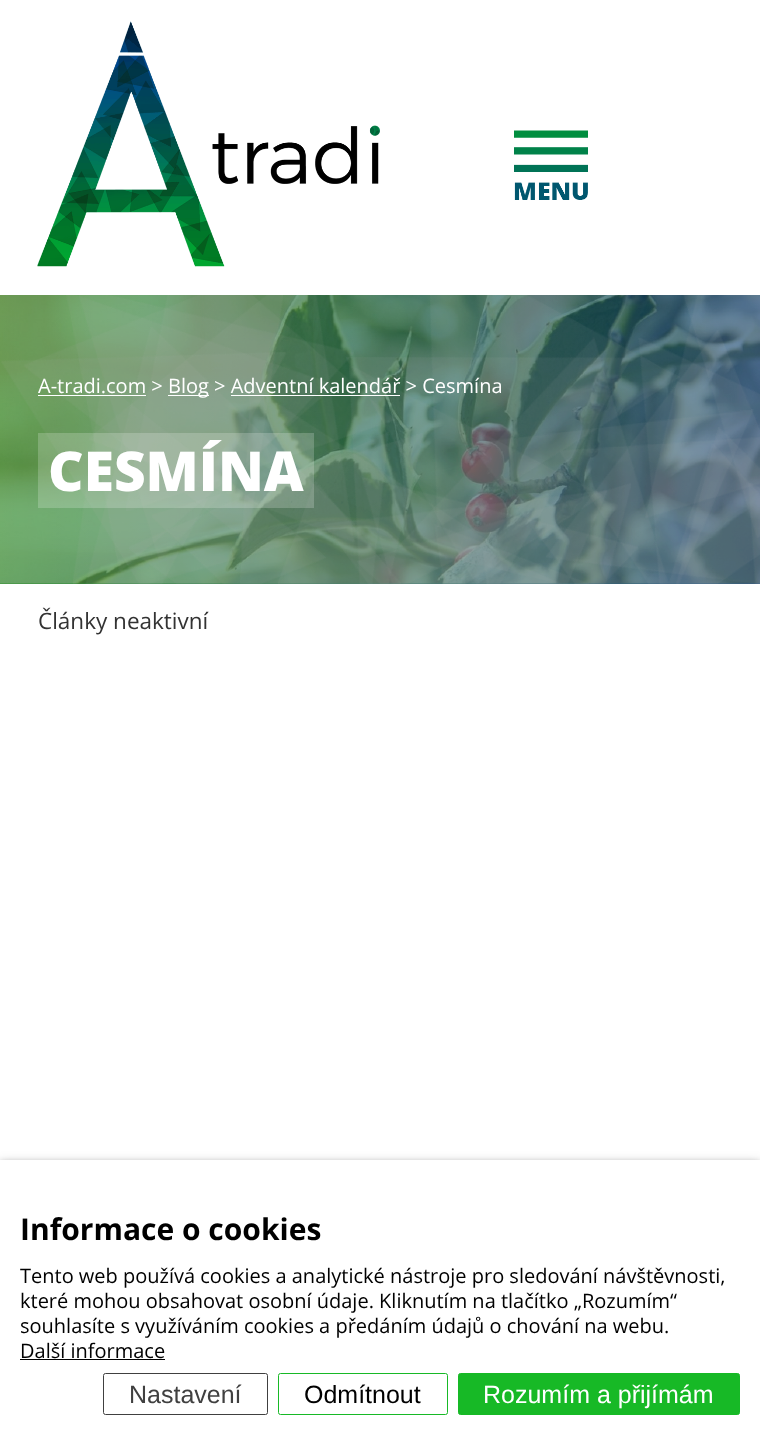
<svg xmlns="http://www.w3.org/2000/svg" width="760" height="1454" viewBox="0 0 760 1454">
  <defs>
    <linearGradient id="g1" gradientUnits="userSpaceOnUse" x1="0" y1="439" x2="760" y2="439"><stop offset="0" stop-color="rgb(45,142,44)"/><stop offset="1" stop-color="rgb(14,68,128)"/></linearGradient>
  </defs>
  <rect width="100%" height="100%" fill="rgb(255,255,255)"/>
  <image x="37" y="21" width="343" height="246" href="pic1.png"/>
  <image x="514" y="130" width="74" height="70" href="pic2.png"/>
  <rect x="0" y="295" width="760" height="289" fill="url(#g1)"/>
  <image x="0" y="295" width="760" height="289" href="pic3.png"/>
  <image x="399" y="337" width="270" height="247" href="pic15.png"/>
  <image x="346" y="357" width="285" height="227" href="pic17.png"/>
  <image x="79" y="295" width="275" height="265" href="pic6.png"/>
  <image x="89" y="295" width="266" height="247" href="pic7.png"/>
  <image x="470" y="409" width="284" height="175" href="pic21.png"/>
  <image x="357" y="483" width="274" height="101" href="pic29.png"/>
  <image x="434" y="524" width="155" height="60" href="pic32.png"/>
  <image x="324" y="490" width="283" height="94" href="pic31.png"/>
  <image x="85" y="327" width="270" height="257" href="pic11.png"/>
  <image x="1" y="352" width="285" height="232" href="pic14.png"/>
  <image x="24" y="295" width="259" height="247" href="pic4.png"/>
  <image x="349" y="365" width="254" height="219" href="pic18.png"/>
  <image x="152" y="433" width="271" height="151" href="pic24.png"/>
  <image x="129" y="432" width="260" height="152" href="pic22.png"/>
  <image x="126" y="295" width="269" height="216" href="pic8.png"/>
  <image x="66" y="295" width="269" height="276" href="pic5.png"/>
  <image x="683" y="295" width="77" height="243" href="pic12.png"/>
  <image x="645" y="295" width="115" height="223" href="pic10.png"/>
  <image x="748" y="483" width="12" height="101" href="pic30.png"/>
  <image x="560" y="437" width="200" height="147" href="pic25.png"/>
  <image x="546" y="330" width="214" height="254" href="pic13.png"/>
  <image x="638" y="338" width="122" height="246" href="pic16.png"/>
  <image x="676" y="427" width="84" height="157" href="pic23.png"/>
  <image x="73" y="382" width="253" height="202" href="pic19.png"/>
  <image x="278" y="481" width="123" height="103" href="pic26.png"/>
  <image x="483" y="551" width="79" height="33" href="pic33.png"/>
  <image x="362" y="477" width="276" height="107" href="pic27.png"/>
  <image x="430" y="295" width="250" height="232" href="pic9.png"/>
  <text x="38" y="393" font-family="Open Sans" font-size="20" fill="rgb(255,255,255)">A-tradi.com &gt;</text>
  <rect x="38" y="395" width="108" height="1" fill="rgb(255,255,255)"/>
  <rect x="168" y="395" width="41" height="1" fill="rgb(255,255,255)"/>
  <image x="240" y="388" width="249" height="196" href="pic20.png"/>
  <text x="168" y="393" font-family="Open Sans" font-size="20" fill="rgb(255,255,255)">Blog &gt; Adventní kalendář &gt; Cesmína</text>
  <rect x="231" y="395" width="169" height="1" fill="rgb(255,255,255)"/>
  <rect x="38" y="433" width="276" height="75" fill="rgba(255,255,255,0.2)"/>
  <text x="48" y="491" font-family="Open Sans" font-size="55" font-weight="800" fill="rgb(255,255,255)">CESMÍNA</text>
  <image x="668" y="444" width="92" height="140" href="pic28.png"/>
  <text x="38" y="629" font-family="Open Sans" font-size="22.5" fill="rgb(51,51,51)">Články neaktivní</text>
  <rect x="0" y="1163" width="760" height="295" fill="rgba(0,0,0,0.22)" filter="blur(6px)"/>
  <rect x="0" y="1163" width="760" height="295" fill="rgba(0,0,0,0.32)" filter="blur(3px)"/>
  <rect x="0" y="1160" width="760" height="294" fill="rgb(255,255,255)"/>
  <text x="20" y="1240" font-family="Open Sans" font-size="30" font-weight="bold" fill="rgb(0,0,0)">Informace o cookies</text>
  <g font-family="Open Sans" font-size="20" fill="rgb(0,0,0)">
    <text>
      <tspan x="20" y="1283">Tento web používá cookies a analytické nástroje pro sledování návštěvnosti,</tspan>
      <tspan x="20" y="1308">které mohou obsahovat osobní údaje. Kliknutím na tlačítko „Rozumím“</tspan>
      <tspan x="20" y="1333">souhlasíte s využíváním cookies a předáním údajů o chování na webu.</tspan>
      <tspan x="20" y="1358">Další informace</tspan>
    </text>
  </g>
  <rect x="20" y="1359" width="145" height="1" fill="rgb(0,0,0)"/>
  <rect x="103.5" y="1373.5" width="164" height="41" rx="2" fill="none" stroke="rgb(64,64,64)"/>
  <text x="129" y="1403" font-family="Liberation Sans" font-size="25" fill="rgb(64,64,64)">Nastavení</text>
  <rect x="278.5" y="1373.5" width="169" height="41" rx="2" fill="none" stroke="rgb(23,185,38)"/>
  <text x="304" y="1403" font-family="Liberation Sans" font-size="25" fill="rgb(0,0,0)">Odmítnout</text>
  <rect x="458.5" y="1373.5" width="281" height="41" rx="2" fill="rgb(23,185,38)" stroke="rgb(23,185,38)"/>
  <text x="483" y="1403" font-family="Liberation Sans" font-size="25" fill="rgb(255,255,255)">Rozumím a přijímám</text>
</svg>
